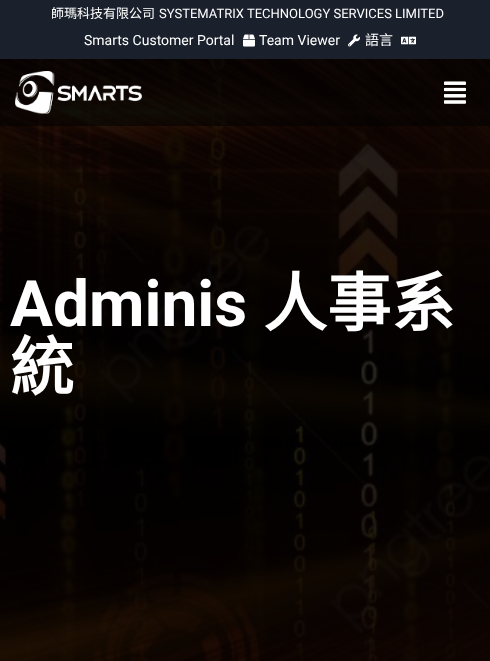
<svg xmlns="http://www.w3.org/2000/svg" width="490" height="661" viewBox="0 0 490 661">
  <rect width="100%" height="100%" fill="rgb(255,255,255)"/>
  <rect x="0" y="0" width="490" height="59" fill="rgb(26,32,44)"/>
  <text x="51" y="18" font-family="Noto Sans CJK HK" font-size="13" fill="rgb(255,255,255)">師瑪科技有限公司</text>
  <text x="159" y="18" font-family="Roboto" font-size="13" fill="rgb(255,255,255)">SYSTEMATRIX TECHNOLOGY SERVICES LIMITED</text>
  <text x="84" y="45" font-family="Roboto" font-size="14" fill="rgb(255,255,255)">Smarts Customer Portal</text>
  <image x="243" y="34" width="12" height="13" href="pic1.png"/>
  <text x="259" y="45" font-family="Roboto" font-size="14" fill="rgb(255,255,255)">Team Viewer</text>
  <image x="348" y="34" width="12" height="13" href="pic2.png"/>
  <text x="365" y="45" font-family="Noto Sans CJK HK" font-size="14" fill="rgb(255,255,255)">語言</text>
  <image x="401" y="36" width="15" height="9" href="pic3.png"/>
  <image x="0" y="59" width="490" height="602" href="pic7.png"/>
  <rect x="0" y="59" width="490" height="67" fill="rgba(2,1,1,0.59)"/>
  <image x="15" y="71" width="127" height="43" href="pic4.png"/>
  <image x="444" y="81" width="22" height="23" href="pic5.png"/>
  <image x="444" y="81" width="22" height="23" href="pic6.png"/>
  <text x="10" y="326" font-family="Roboto" font-size="64" font-weight="bold" fill="rgb(255,255,255)">Adminis</text>
  <g font-family="Noto Sans CJK HK" font-size="64" font-weight="bold" fill="rgb(255,255,255)">
    <text x="263" y="326">人事系</text>
    <text x="10" y="390">統</text>
  </g>
</svg>
